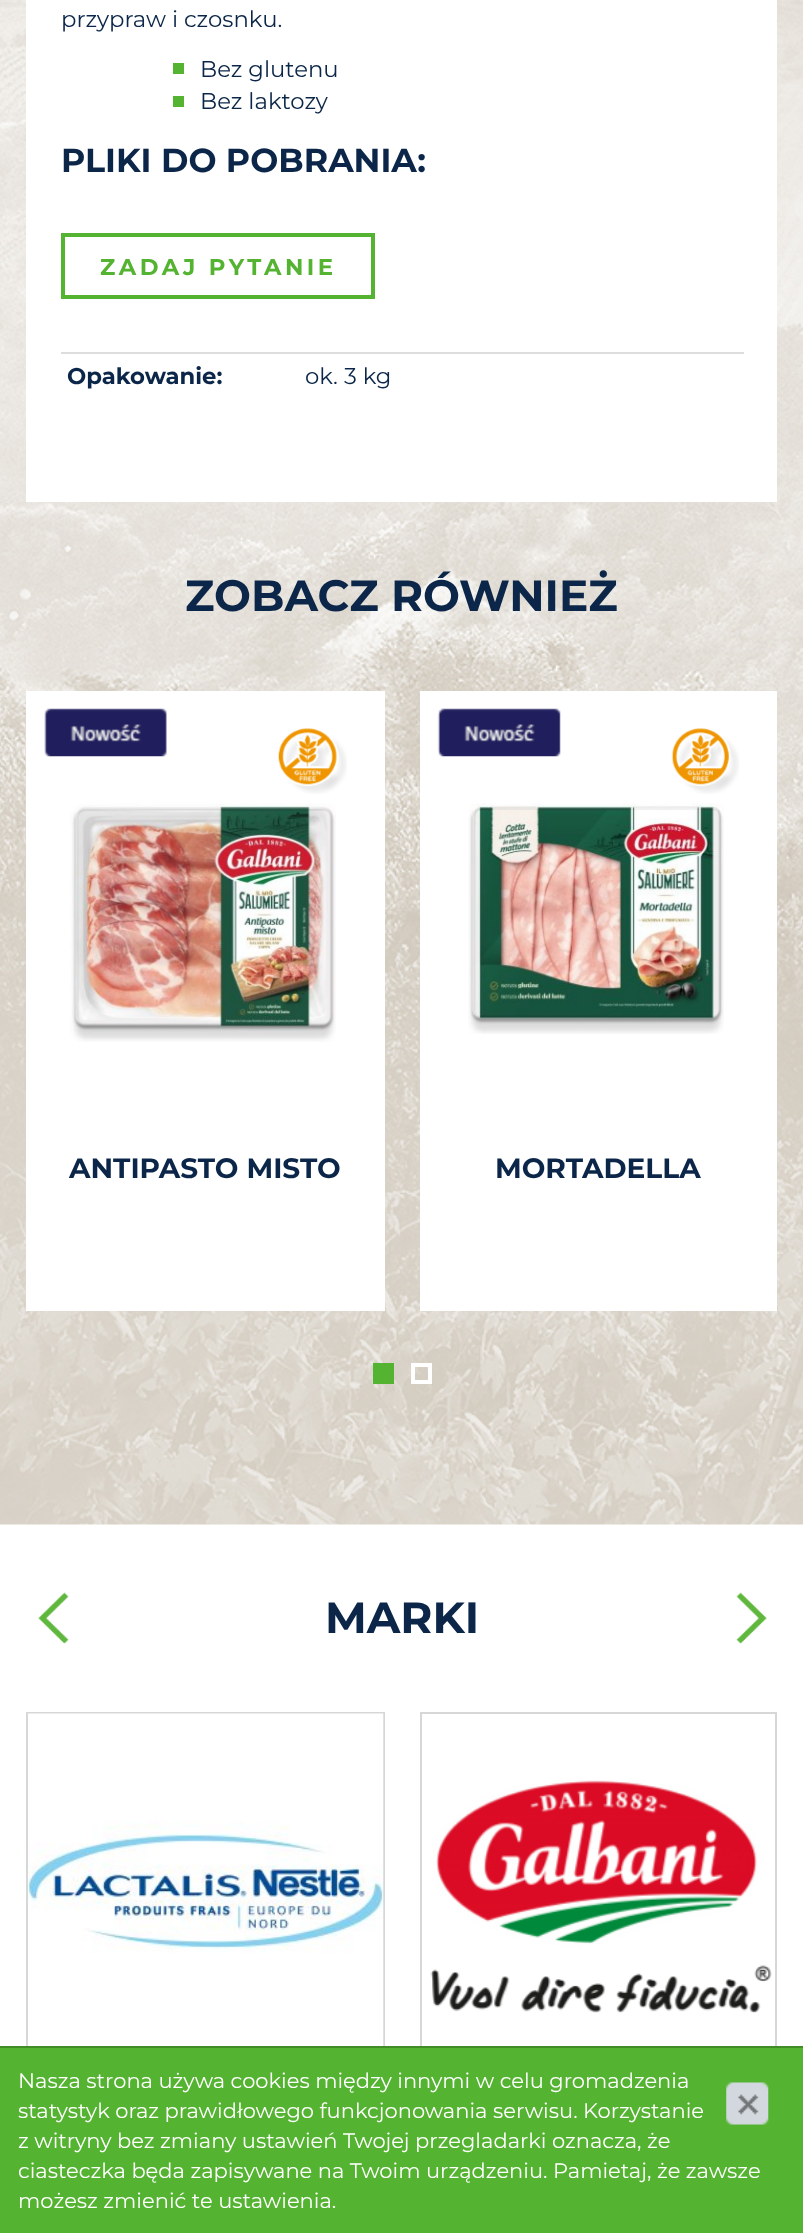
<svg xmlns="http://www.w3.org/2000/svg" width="803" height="2233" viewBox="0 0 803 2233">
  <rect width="100%" height="100%" fill="rgb(255,255,255)"/>
  <image x="0" y="0" width="803" height="1525" href="pic1.png"/>
  <rect x="26" y="0" width="751" height="502" fill="rgb(255,255,255)"/>
  <text x="61" y="27" font-family="Montserrat" font-size="22.75" fill="rgb(11,38,72)">przypraw i czosnku.</text>
  <rect x="173" y="63" width="11" height="11" fill="rgb(85,179,50)"/>
  <text x="200" y="77" font-family="Montserrat" font-size="22.75" fill="rgb(11,38,72)">Bez glutenu</text>
  <rect x="173" y="96" width="11" height="11" fill="rgb(85,179,50)"/>
  <text x="200" y="109" font-family="Montserrat" font-size="22.75" fill="rgb(11,38,72)">Bez laktozy</text>
  <text x="61" y="172" font-family="Montserrat" font-size="33.25" font-weight="bold" fill="rgb(11,38,72)">PLIKI DO POBRANIA:</text>
  <rect x="63" y="235" width="310" height="62" fill="none" stroke="rgb(85,179,50)" stroke-width="4"/>
  <text x="100" y="275" font-family="Montserrat" font-size="22.75" font-weight="bold" letter-spacing="3.5" fill="rgb(85,179,50)">ZADAJ PYTANIE</text>
  <text x="67" y="384" font-family="Montserrat" font-size="22.75" font-weight="bold" fill="rgb(11,38,72)">Opakowanie:</text>
  <rect x="61" y="352" width="683" height="2" fill="rgb(221,221,221)"/>
  <text x="305" y="384" font-family="Montserrat" font-size="22.75" fill="rgb(11,38,72)">ok. 3 kg</text>
  <text x="185" y="611" font-family="Montserrat" font-size="43.75" font-weight="bold" fill="rgb(11,38,72)">ZOBACZ RÓWNIEŻ</text>
  <rect x="26" y="691" width="359" height="620" fill="rgb(255,255,255)"/>
  <image x="44" y="708" width="123" height="49" href="pic2.png"/>
  <image x="278" y="728" width="69" height="66" href="pic3.png"/>
  <image x="70" y="803" width="266" height="239" href="pic4.png"/>
  <text x="69" y="1178" font-family="Montserrat" font-size="28" font-weight="bold" fill="rgb(11,38,72)">ANTIPASTO MISTO</text>
  <rect x="420" y="691" width="357" height="620" fill="rgb(255,255,255)"/>
  <image x="437" y="708" width="124" height="49" href="pic5.png"/>
  <image x="671" y="728" width="68" height="66" href="pic6.png"/>
  <image x="468" y="803" width="256" height="231" href="pic7.png"/>
  <text x="495" y="1178" font-family="Montserrat" font-size="28" font-weight="bold" fill="rgb(11,38,72)">MORTADELLA</text>
  <rect x="373" y="1363" width="21" height="21" fill="rgb(85,179,50)"/>
  <rect x="413" y="1365" width="17" height="17" fill="none" stroke="rgb(255,255,255)" stroke-width="4"/>
  <image x="38" y="1592" width="31" height="52" href="pic8.png"/>
  <image x="736" y="1592" width="31" height="52" href="pic9.png"/>
  <rect x="27" y="1713" width="357" height="356" fill="none" stroke="rgb(215,215,215)" stroke-width="2"/>
  <image x="28" y="1713" width="356" height="333" href="pic10.png"/>
  <rect x="421" y="1713" width="355" height="356" fill="none" stroke="rgb(215,215,215)" stroke-width="2"/>
  <image x="430" y="1780" width="342" height="233" href="pic11.png"/>
  <text x="325" y="1633" font-family="Montserrat" font-size="43.75" font-weight="bold" fill="rgb(11,38,72)">MARKI</text>
  <rect x="0" y="2048" width="803" height="185" fill="rgb(85,179,50)"/>
  <rect x="0" y="2046" width="803" height="2" fill="rgb(66,139,39)"/>
  <text x="18" y="2088" font-family="Montserrat" font-size="21" fill="rgb(255,255,255)">Nasza strona używa cookies między innymi w celu gromadzenia</text>
  <image x="726" y="2082" width="43" height="43" href="pic12.png"/>
  <g font-family="Montserrat" font-size="21" fill="rgb(255,255,255)">
    <text>
      <tspan x="18" y="2118">statystyk oraz prawidłowego funkcjonowania serwisu. Korzystanie</tspan>
      <tspan x="18" y="2148">z witryny bez zmiany ustawień Twojej przegladarki oznacza, że</tspan>
      <tspan x="18" y="2178">ciasteczka będa zapisywane na Twoim urządzeniu. Pamietaj, że zawsze</tspan>
      <tspan x="18" y="2208">możesz zmienić te ustawienia.</tspan>
    </text>
  </g>
</svg>
